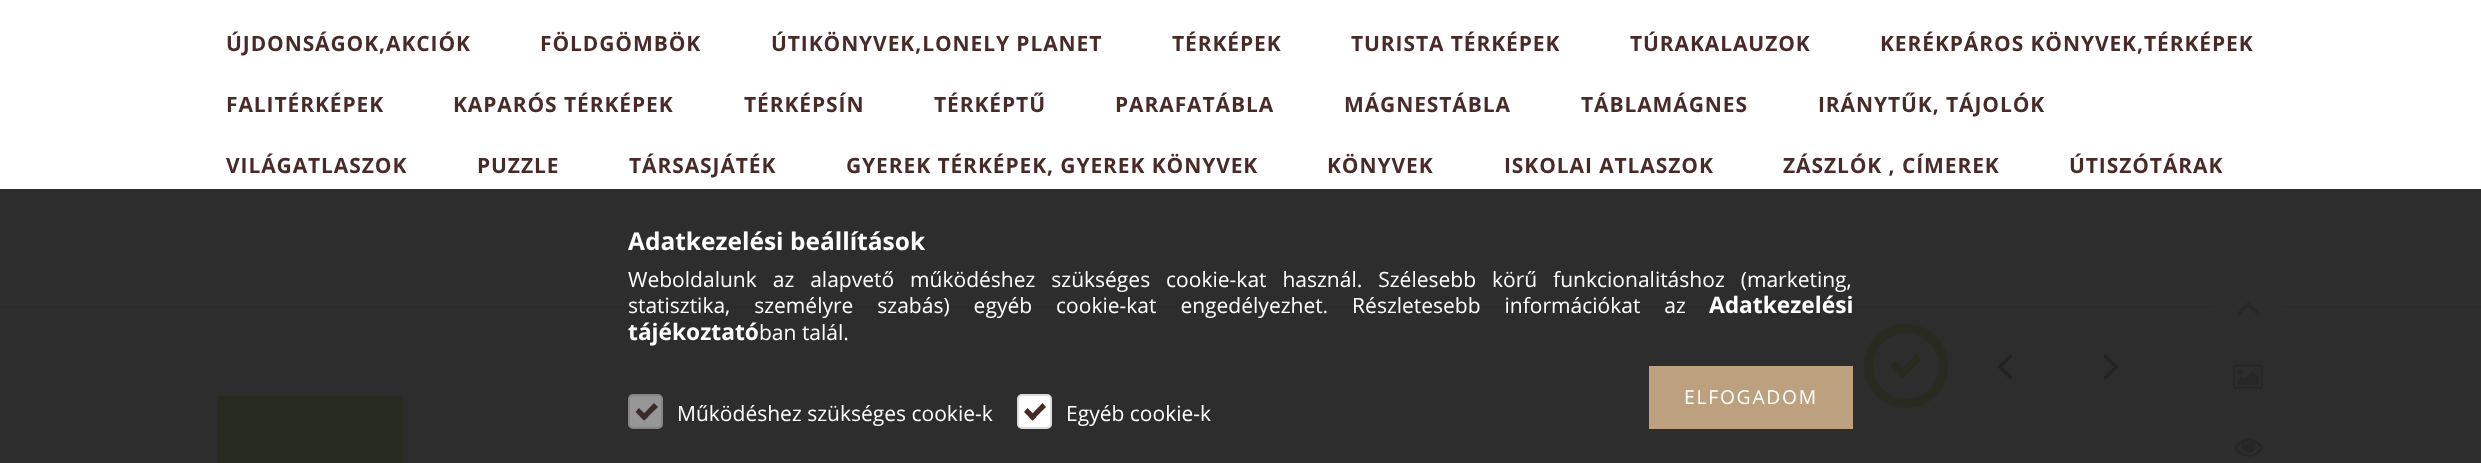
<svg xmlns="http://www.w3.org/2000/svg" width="2481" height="463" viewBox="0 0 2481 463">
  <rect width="100%" height="100%" fill="rgb(45,45,45)"/>
  <rect x="0" y="0" width="2481" height="189" fill="rgb(255,255,255)"/>
  <rect x="0" y="306" width="2481" height="2" fill="rgb(43,43,42)"/>
  <g font-family="Open Sans" font-size="21" font-weight="bold" letter-spacing="0.9" fill="rgb(72,42,40)">
    <text x="226" y="51">ÚJDONSÁGOK,AKCIÓK</text>
    <text x="540" y="51">FÖLDGÖMBÖK</text>
    <text x="771" y="51">ÚTIKÖNYVEK,LONELY PLANET</text>
    <text x="1172" y="51">TÉRKÉPEK</text>
    <text x="1351" y="51">TURISTA TÉRKÉPEK</text>
    <text x="1630" y="51">TÚRAKALAUZOK</text>
    <text x="1880" y="51">KERÉKPÁROS KÖNYVEK,TÉRKÉPEK</text>
    <text x="226" y="112">FALITÉRKÉPEK</text>
    <text x="453" y="112">KAPARÓS TÉRKÉPEK</text>
    <text x="744" y="112">TÉRKÉPSÍN</text>
    <text x="934" y="112">TÉRKÉPTŰ</text>
    <text x="1115" y="112">PARAFATÁBLA</text>
    <text x="1344" y="112">MÁGNESTÁBLA</text>
    <text x="1581" y="112">TÁBLAMÁGNES</text>
    <text x="1818" y="112">IRÁNYTŰK, TÁJOLÓK</text>
    <text x="226" y="173">VILÁGATLASZOK</text>
    <text x="477" y="173">PUZZLE</text>
    <text x="629" y="173">TÁRSASJÁTÉK</text>
    <text x="846" y="173">GYEREK TÉRKÉPEK, GYEREK KÖNYVEK</text>
    <text x="1327" y="173">KÖNYVEK</text>
    <text x="1504" y="173">ISKOLAI ATLASZOK</text>
    <text x="1783" y="173">ZÁSZLÓK , CÍMEREK</text>
    <text x="2069" y="173">ÚTISZÓTÁRAK</text>
  </g>
  <rect x="217" y="396" width="186" height="67" fill="rgb(40,43,32)"/>
  <circle cx="1906" cy="366" r="37.5" fill="none" stroke="rgb(41,43,32)" stroke-width="9"/>
  <image x="1890" y="354" width="31" height="24" href="pic1.png"/>
  <image x="1997" y="354" width="16" height="26" href="pic2.png"/>
  <image x="2103" y="354" width="16" height="26" href="pic3.png"/>
  <rect x="2214" y="306" width="68" height="2" fill="rgb(45,45,45)"/>
  <image x="2236" y="302" width="24" height="14" href="pic4.png"/>
  <image x="2233" y="364" width="30" height="25" href="pic5.png"/>
  <image x="2234" y="438" width="29" height="19" href="pic6.png"/>
  <text x="628" y="250" font-family="Open Sans" font-size="24.5" font-weight="bold" fill="rgb(255,255,255)">Adatkezelési beállítások</text>
  <g font-family="Open Sans" font-size="21" fill="rgb(255,255,255)">
    <text>
      <tspan x="628" y="287" word-spacing="10.5">Weboldalunk az alapvető működéshez szükséges cookie-kat használ. Szélesebb körű funkcionalitáshoz (marketing,</tspan>
      <tspan x="628" y="313" word-spacing="18.5">statisztika, személyre szabás) egyéb cookie-kat engedélyezhet. Részletesebb információkat az</tspan>
    </text>
  </g>
  <g font-family="Open Sans" font-size="22.75" font-weight="bold" fill="rgb(255,255,255)">
    <text x="1709" y="313">Adatkezelési</text>
    <text x="628" y="340">tájékoztató</text>
  </g>
  <text x="759" y="340" font-family="Open Sans" font-size="21" fill="rgb(255,255,255)">ban talál.</text>
  <rect x="1649" y="366" width="204" height="63" fill="rgb(189,160,126)"/>
  <text x="1684" y="404" font-family="Open Sans" font-size="19.25" letter-spacing="1.75" fill="rgb(255,255,255)">ELFOGADOM</text>
  <rect x="629" y="395" width="33" height="33" rx="4" fill="rgb(150,150,150)" stroke="rgb(133,133,133)" stroke-width="2"/>
  <path d="M640.5 417L654 403L658 407L644 420.5Z" fill="rgb(59,44,43)"/>
  <path d="M635.5 412L639 408L648 417L644 420.5Z" fill="rgb(59,44,43)"/>
  <text x="677" y="421" font-family="Open Sans" font-size="21" fill="rgb(255,255,255)">Működéshez szükséges cookie-k</text>
  <rect x="1018" y="395" width="33" height="33" rx="4" fill="rgb(255,255,255)" stroke="rgb(221,221,221)" stroke-width="2"/>
  <path d="M1029 417L1042.5 403L1046 407L1032.5 420.5Z" fill="rgb(72,42,40)"/>
  <path d="M1024 412L1027.5 408L1036.5 417L1032.5 420.5Z" fill="rgb(72,42,40)"/>
  <text x="1066" y="421" font-family="Open Sans" font-size="21" fill="rgb(255,255,255)">Egyéb cookie-k</text>
</svg>
